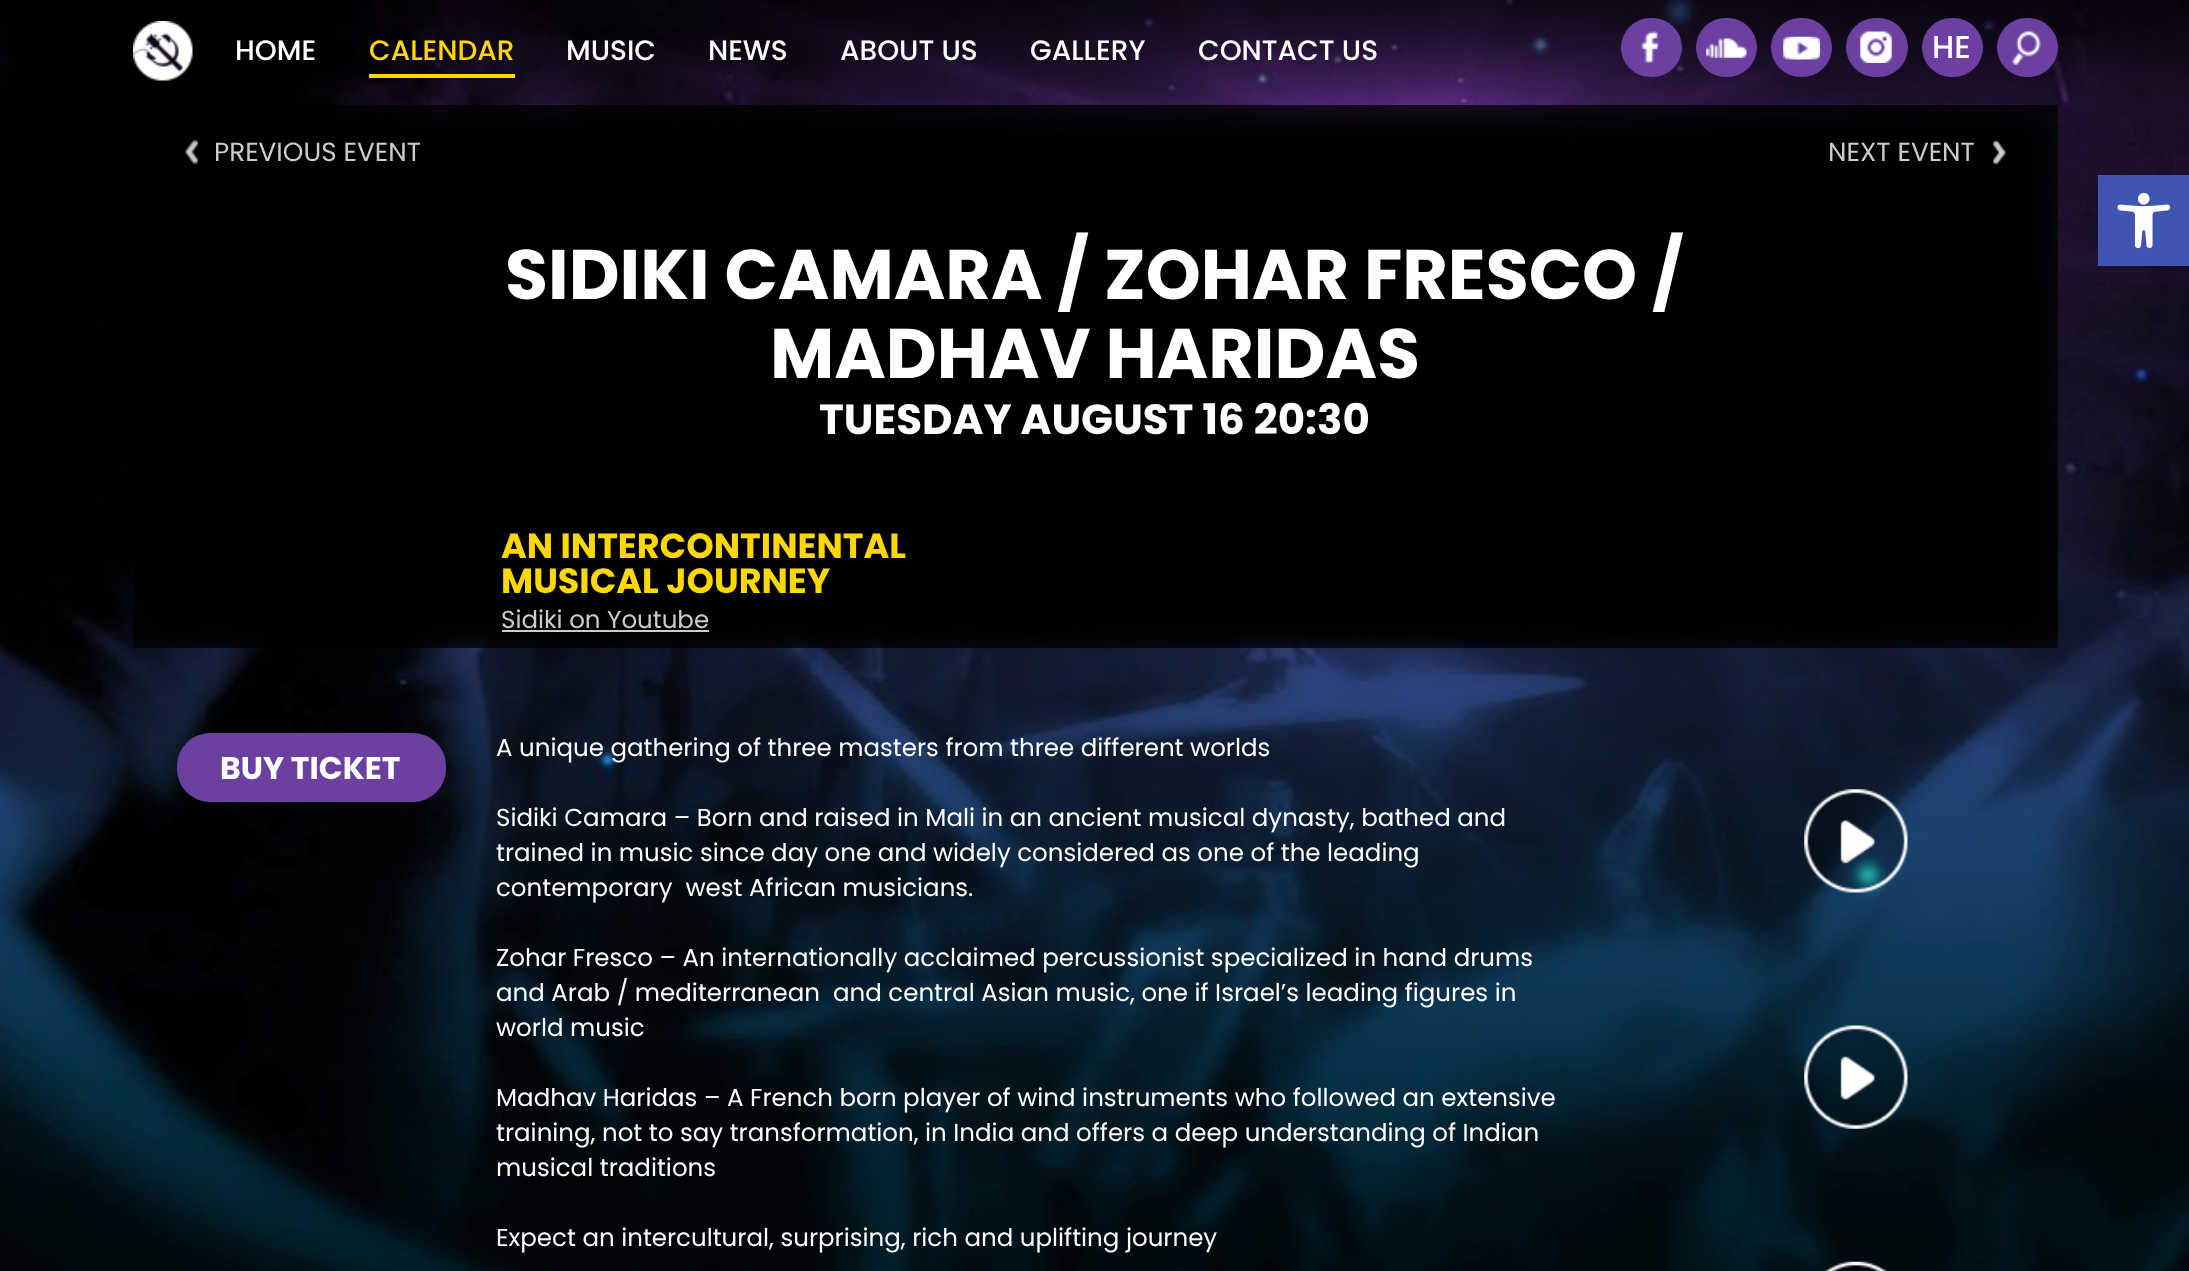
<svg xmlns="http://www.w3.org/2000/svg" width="2189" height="1271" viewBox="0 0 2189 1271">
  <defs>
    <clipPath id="clip1"><rect x="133" y="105" width="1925" height="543"/></clipPath>
    <linearGradient id="g1" gradientUnits="userSpaceOnUse" x1="1096" y1="280" x2="1096" y2="639"><stop offset="0" stop-color="rgb(0,0,0)" stop-opacity="0"/><stop offset="1" stop-color="rgb(0,0,0)" stop-opacity="0.5"/></linearGradient>
  </defs>
  <rect width="100%" height="100%" fill="rgb(255,255,255)"/>
  <image x="0" y="0" width="2189" height="1271" href="pic10.png"/>
  <rect x="177" y="733" width="269" height="69" rx="33" fill="rgb(108,64,161)"/>
  <g clip-path="url(#clip1)">
    <rect x="116" y="88" width="1960" height="577" fill="rgb(0,0,0)" filter="blur(26px)"/>
  </g>
  <image x="133" y="21" width="60" height="60" href="pic1.png"/>
  <text x="235" y="60" font-family="Poppins" font-size="28" font-weight="500" fill="rgb(255,255,255)">HOME</text>
  <rect x="369" y="74" width="146" height="4" fill="rgb(252,216,0)"/>
  <text x="369" y="60" font-family="Poppins" font-size="28" font-weight="500" fill="rgb(252,216,0)">CALENDAR</text>
  <g font-family="Poppins" font-size="28" font-weight="500" fill="rgb(255,255,255)">
    <text x="566" y="60">MUSIC</text>
    <text x="708" y="60">NEWS</text>
    <text x="840" y="60">ABOUT US</text>
    <text x="1030" y="60">GALLERY</text>
    <text x="1198" y="60">CONTACT US</text>
  </g>
  <rect x="1621" y="18" width="61" height="59" rx="29.5" fill="rgb(108,64,161)"/>
  <image x="1641" y="31" width="18" height="32" href="pic2.png"/>
  <rect x="1696" y="18" width="61" height="59" rx="29.5" fill="rgb(108,64,161)"/>
  <image x="1706" y="38" width="41" height="20" href="pic3.png"/>
  <rect x="1771" y="18" width="61" height="59" rx="29.5" fill="rgb(108,64,161)"/>
  <image x="1783" y="36" width="37" height="24" href="pic4.png"/>
  <rect x="1846" y="18" width="62" height="59" rx="29.5" fill="rgb(108,64,161)"/>
  <image x="1860" y="31" width="32" height="32" href="pic5.png"/>
  <rect x="1922" y="18" width="61" height="59" rx="29.5" fill="rgb(108,64,161)"/>
  <text x="1932" y="58" font-family="Poppins" font-size="31.5" font-weight="500" fill="rgb(255,255,255)">HE</text>
  <rect x="1997" y="18" width="61" height="59" rx="29.5" fill="rgb(108,64,161)"/>
  <image x="2012" y="31" width="29" height="34" href="pic6.png"/>
  <image x="185" y="139" width="13" height="26" href="pic7.png"/>
  <g font-family="Poppins" font-size="26.25" fill="rgb(204,204,204)">
    <text x="214" y="161">PREVIOUS EVENT</text>
    <text x="1828" y="161">NEXT EVENT</text>
  </g>
  <image x="1992" y="139" width="14" height="26" href="pic8.png"/>
  <rect x="2098" y="175" width="91" height="91" fill="rgb(64,84,178)"/>
  <image x="2117" y="193" width="54" height="56" href="pic9.png"/>
  <rect x="133" y="467" width="1925" height="172" fill="url(#g1)"/>
  <g font-family="Poppins" font-size="70" font-weight="bold" fill="rgb(255,255,255)">
    <text x="505" y="299">SIDIKI CAMARA / ZOHAR FRESCO /</text>
    <text x="770" y="378">MADHAV HARIDAS</text>
  </g>
  <text x="819" y="434" font-family="Poppins" font-size="42" font-weight="bold" fill="rgb(255,255,255)">TUESDAY AUGUST 16 20:30</text>
  <g font-family="Poppins" font-size="35" font-weight="bold" fill="rgb(252,216,0)">
    <text>
      <tspan x="501" y="558">AN INTERCONTINENTAL</tspan>
      <tspan x="501" y="593">MUSICAL JOURNEY</tspan>
    </text>
  </g>
  <text x="501" y="628" font-family="Poppins" font-size="24.5" fill="rgb(204,204,204)">Sidiki on Youtube</text>
  <rect x="502" y="630" width="207" height="2" fill="rgb(204,204,204)"/>
  <text x="220" y="779" font-family="Poppins" font-size="31.5" font-weight="bold" fill="rgb(255,255,255)">BUY TICKET</text>
  <g font-family="Poppins" font-size="24.5" fill="rgb(255,255,255)">
    <text x="496" y="756">A unique gathering of three masters from three different worlds</text>
    <text xml:space="preserve"><tspan x="496" y="826">Sidiki Camara – Born and raised in Mali in an ancient musical dynasty, bathed and</tspan><tspan x="496" y="861">trained in music since day one and widely considered as one of the leading</tspan><tspan x="496" y="896">contemporary  west African musicians.</tspan></text>
    <text xml:space="preserve"><tspan x="496" y="966">Zohar Fresco – An internationally acclaimed percussionist specialized in hand drums</tspan><tspan x="496" y="1001">and Arab / mediterranean  and central Asian music, one if Israel’s leading figures in</tspan><tspan x="496" y="1036">world music</tspan></text>
    <text>
      <tspan x="496" y="1106">Madhav Haridas – A French born player of wind instruments who followed an extensive</tspan>
      <tspan x="496" y="1141">training, not to say transformation, in India and offers a deep understanding of Indian</tspan>
      <tspan x="496" y="1176">musical traditions</tspan>
    </text>
    <text x="496" y="1246">Expect an intercultural, surprising, rich and uplifting journey</text>
  </g>
  <image x="1804" y="789" width="104" height="104" href="pic11.png"/>
  <image x="1804" y="1025" width="104" height="104" href="pic12.png"/>
  <image x="1824" y="1261" width="63" height="10" href="pic13.png"/>
</svg>
